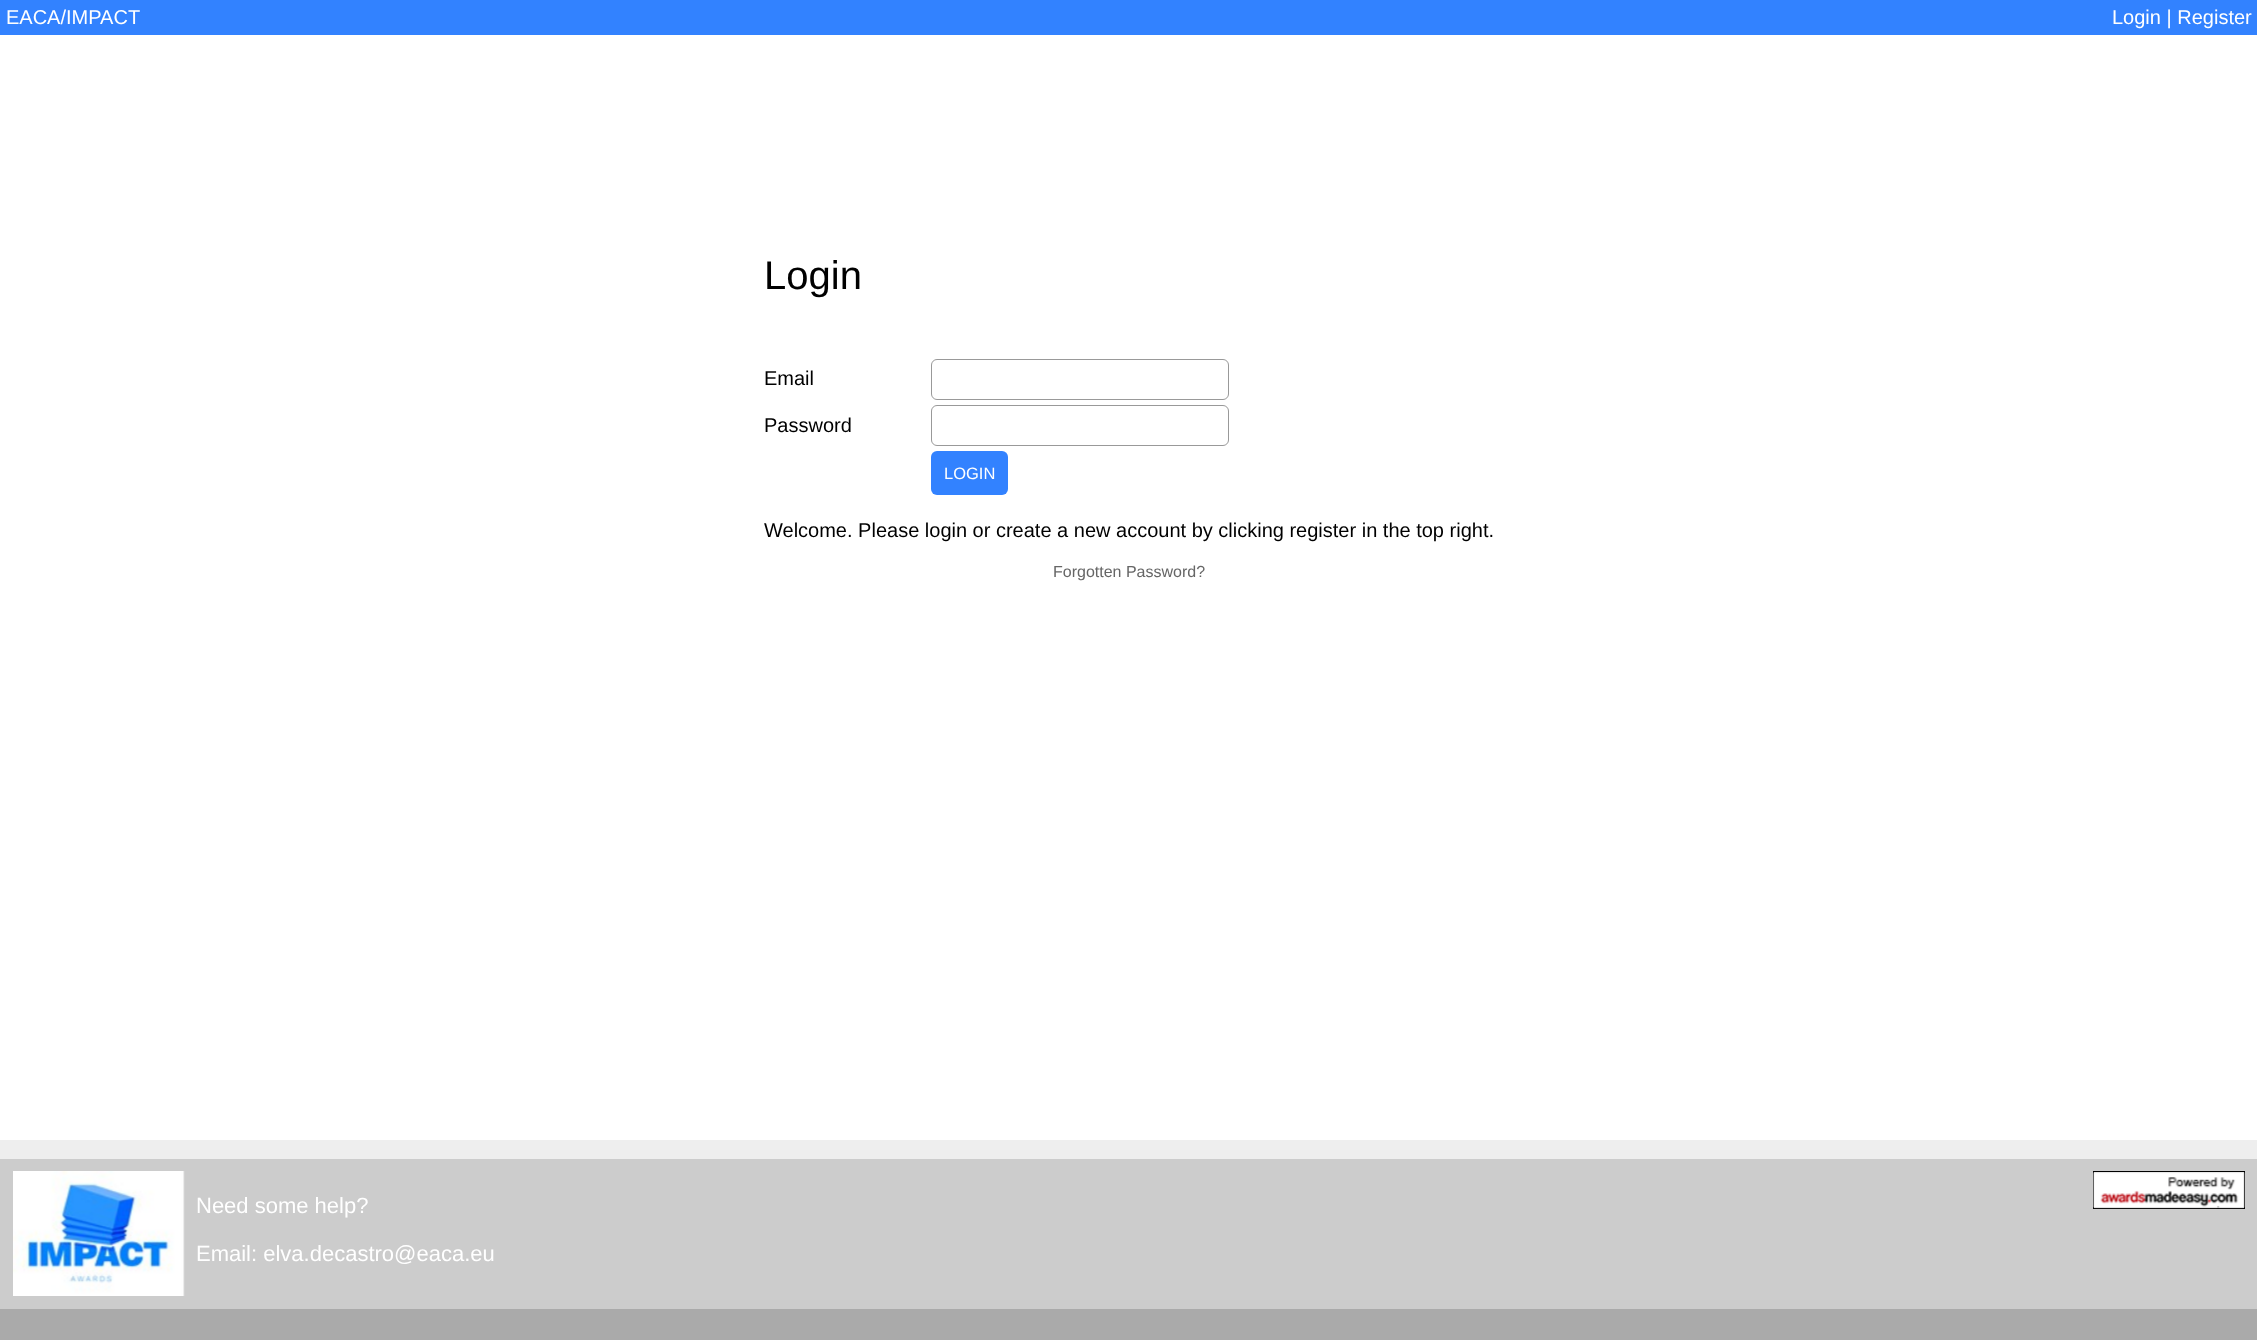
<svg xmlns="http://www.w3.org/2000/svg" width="2257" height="1340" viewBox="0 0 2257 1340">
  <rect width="100%" height="100%" fill="rgb(255,255,255)"/>
  <rect x="0" y="0" width="2257" height="35" fill="rgb(50,130,255)"/>
  <g font-family="Liberation Sans" font-size="20" fill="rgb(255,255,255)">
    <text x="6" y="24">EACA/IMPACT</text>
    <text x="2112" y="24">Login | Register</text>
  </g>
  <text x="764" y="289" font-family="Liberation Sans" font-size="40" fill="rgb(0,0,0)">Login</text>
  <text x="764" y="385" font-family="Liberation Sans" font-size="20" fill="rgb(0,0,0)">Email</text>
  <rect x="931.5" y="359.5" width="297" height="40" rx="5.5" fill="none" stroke="rgb(153,153,153)"/>
  <text x="764" y="432" font-family="Liberation Sans" font-size="20" fill="rgb(0,0,0)">Password</text>
  <rect x="931.5" y="405.5" width="297" height="40" rx="5.5" fill="none" stroke="rgb(153,153,153)"/>
  <rect x="931" y="451" width="77" height="44" rx="6" fill="rgb(50,130,255)"/>
  <text x="944" y="479" font-family="Liberation Sans" font-size="16.5" fill="rgb(255,255,255)">LOGIN</text>
  <text x="764" y="537" font-family="Liberation Sans" font-size="20" fill="rgb(0,0,0)">Welcome. Please login or create a new account by clicking register in the top right.</text>
  <text x="1053" y="577" font-family="Liberation Sans" font-size="16" fill="rgb(102,102,102)">Forgotten Password?</text>
  <rect x="0" y="1159" width="2257" height="150" fill="rgb(204,204,204)"/>
  <rect x="0" y="1140" width="2257" height="19" fill="rgb(238,238,238)"/>
  <rect x="0" y="1309" width="2257" height="31" fill="rgb(170,170,170)"/>
  <image x="13" y="1171" width="172" height="125" href="pic1.png"/>
  <text x="196" y="1213" font-family="Liberation Sans" font-size="22" fill="rgb(255,255,255)">Need some help?</text>
  <rect x="2093.5" y="1171.5" width="151" height="37" fill="none" stroke="rgb(0,0,0)"/>
  <image x="2093" y="1172" width="152" height="37" href="pic2.png"/>
  <text x="196" y="1261" font-family="Liberation Sans" font-size="22" fill="rgb(255,255,255)">Email: elva.decastro@eaca.eu</text>
</svg>
